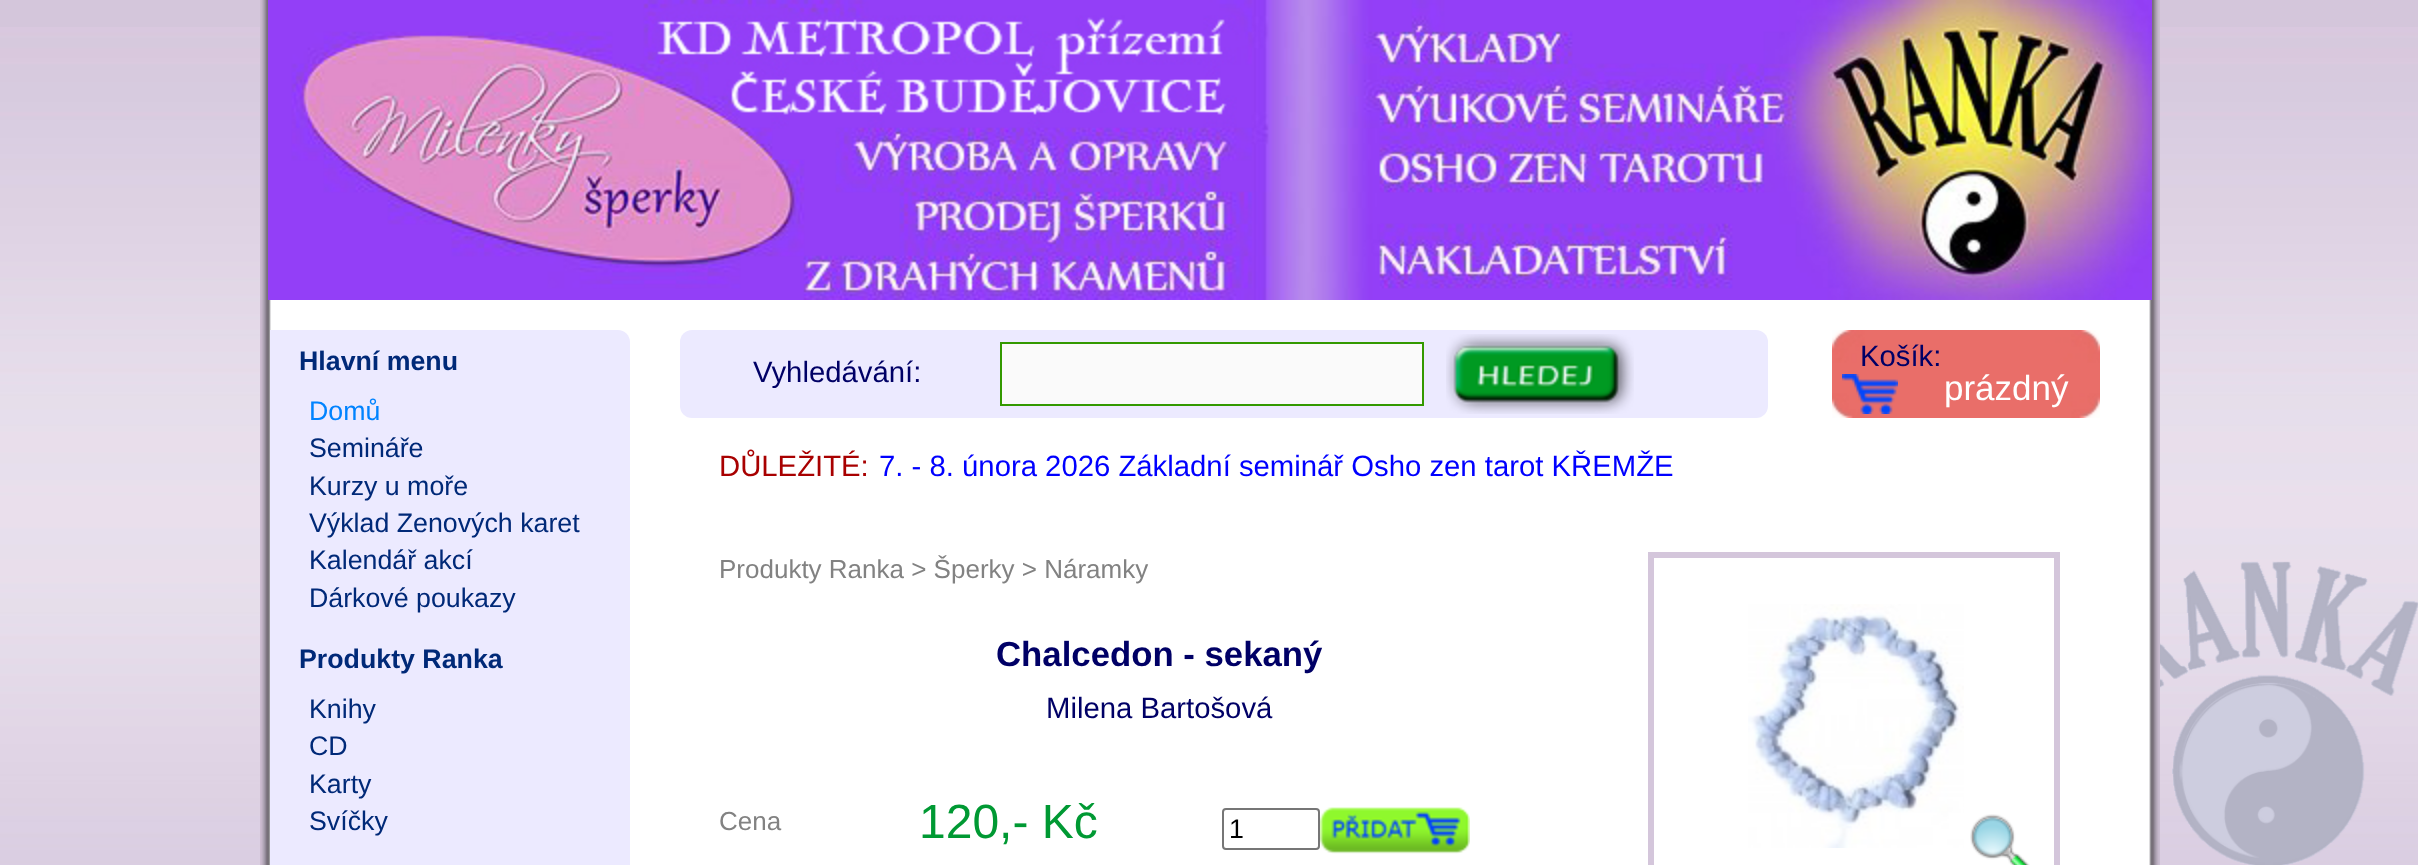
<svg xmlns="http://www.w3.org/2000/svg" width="2418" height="865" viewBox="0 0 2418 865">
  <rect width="100%" height="100%" fill="rgb(212,198,219)"/>
  <image x="0" y="27" width="2418" height="838" href="pic1.png"/>
  <image x="260" y="0" width="1900" height="865" href="pic2.png"/>
  <image x="268" y="0" width="1884" height="300" href="pic3.png"/>
  <path d="M270 330H618C624.5 330 630 335.5 630 342V865C630 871.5 624.5 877 618 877H270Z" fill="rgb(236,234,255)"/>
  <text x="299" y="370" font-family="Liberation Sans" font-size="26.75" font-weight="bold" fill="rgb(0,41,120)">Hlavní menu</text>
  <text x="309" y="420" font-family="Liberation Sans" font-size="26.75" fill="rgb(0,131,255)">Domů</text>
  <g font-family="Liberation Sans" font-size="26.75" fill="rgb(0,41,120)">
    <text>
      <tspan x="309" y="457">Semináře</tspan>
      <tspan x="309" y="495">Kurzy u moře</tspan>
      <tspan x="309" y="532">Výklad Zenových karet</tspan>
      <tspan x="309" y="569">Kalendář akcí</tspan>
      <tspan x="309" y="607">Dárkové poukazy</tspan>
    </text>
  </g>
  <text x="299" y="668" font-family="Liberation Sans" font-size="26.75" font-weight="bold" fill="rgb(0,41,120)">Produkty Ranka</text>
  <g font-family="Liberation Sans" font-size="26.75" fill="rgb(0,41,120)">
    <text>
      <tspan x="309" y="718">Knihy</tspan>
      <tspan x="309" y="755">CD</tspan>
      <tspan x="309" y="793">Karty</tspan>
      <tspan x="309" y="830">Svíčky</tspan>
    </text>
  </g>
  <rect x="680" y="330" width="1088" height="88" rx="12" fill="rgb(236,234,255)"/>
  <text x="753" y="382" font-family="Liberation Sans" font-size="29.3" fill="rgb(0,0,102)">Vyhledávání:</text>
  <rect x="1001" y="343" width="422" height="62" fill="rgb(250,250,250)" stroke="rgb(51,153,0)" stroke-width="2"/>
  <image x="1446" y="334" width="188" height="80" href="pic4.png"/>
  <image x="1832" y="330" width="268" height="88" href="pic5.png"/>
  <image x="1842" y="374" width="56" height="40" href="pic6.png"/>
  <text x="1860" y="366" font-family="Liberation Sans" font-size="29.3" fill="rgb(0,0,102)">Košík:</text>
  <text x="1944" y="400" font-family="Liberation Sans" font-size="35" fill="rgb(255,255,255)">prázdný</text>
  <text x="719" y="476" font-family="Liberation Sans" font-size="29.3" fill="rgb(168,0,0)">DŮLEŽITÉ:</text>
  <text x="879" y="476" font-family="Liberation Sans" font-size="29.3" fill="rgb(0,0,255)">7. - 8. února 2026 Základní seminář Osho zen tarot KŘEMŽE</text>
  <text x="719" y="578" font-family="Liberation Sans" font-size="26" fill="rgb(130,130,130)">Produkty Ranka &gt; Šperky &gt; Náramky</text>
  <text x="996" y="666" font-family="Liberation Sans" font-size="34.75" font-weight="bold" fill="rgb(0,0,102)">Chalcedon - sekaný</text>
  <text x="1046" y="718" font-family="Liberation Sans" font-size="29.3" fill="rgb(0,0,102)">Milena Bartošová</text>
  <text x="719" y="830" font-family="Liberation Sans" font-size="26" fill="rgb(130,130,130)">Cena</text>
  <text x="919" y="838" font-family="Liberation Sans" font-size="48" fill="rgb(0,153,51)">120,- Kč</text>
  <rect x="1223" y="809" width="96" height="40" rx="3" fill="none" stroke="rgb(118,118,118)" stroke-width="2"/>
  <text x="1229" y="838" font-family="Liberation Sans" font-size="26.75" fill="rgb(0,0,0)">1</text>
  <image x="1320" y="807" width="150" height="47" href="pic7.png"/>
  <rect x="1648" y="552" width="412" height="313" fill="rgb(212,198,219)"/>
  <rect x="1654" y="558" width="400" height="307" fill="rgb(255,255,255)"/>
  <image x="1748" y="604" width="216" height="244" href="pic8.png"/>
  <image x="1970" y="814" width="60" height="51" href="pic9.png"/>
  <image x="2160" y="561" width="258" height="304" href="pic10.png"/>
</svg>
